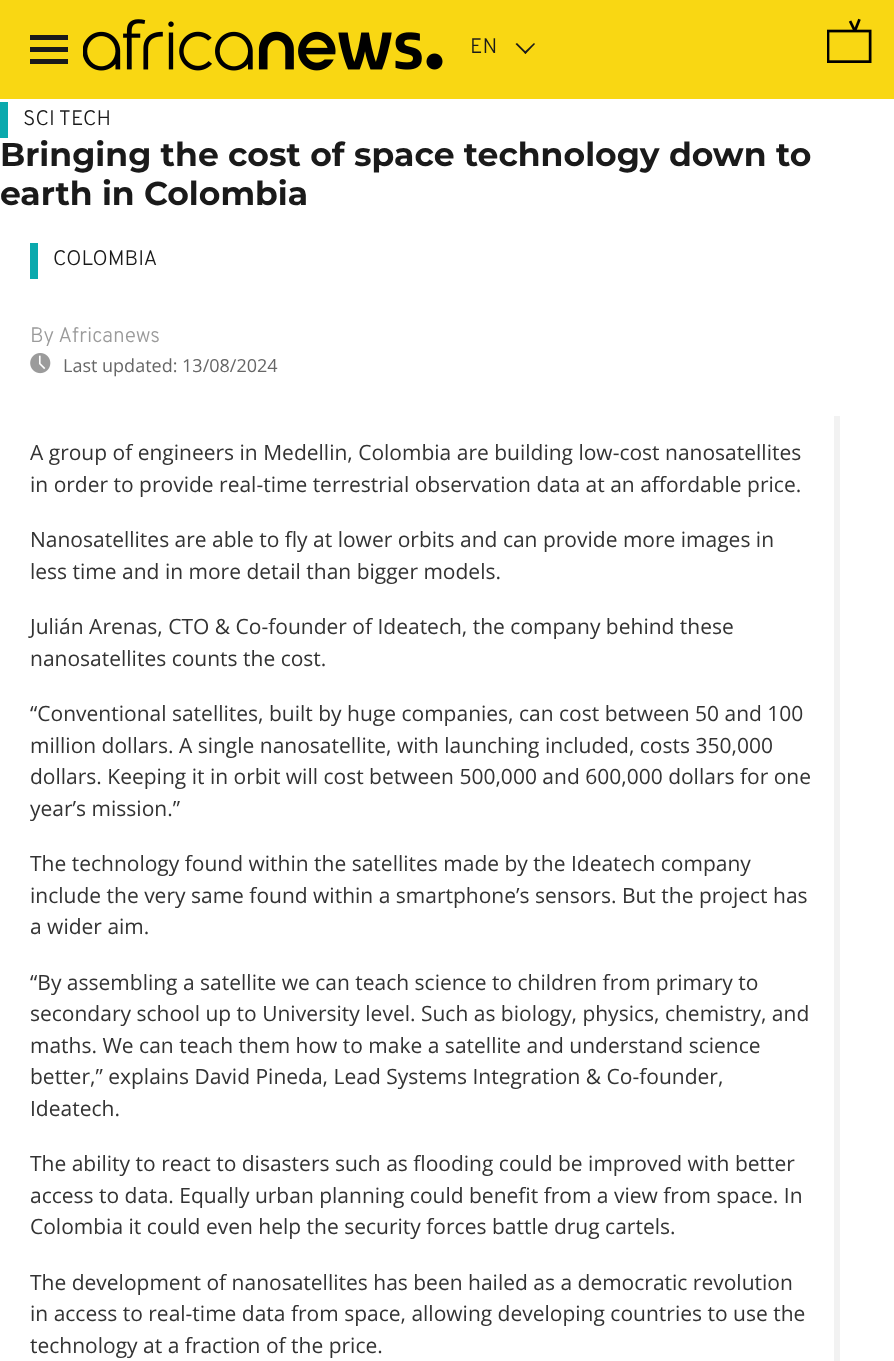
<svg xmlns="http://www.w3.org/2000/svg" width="894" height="1361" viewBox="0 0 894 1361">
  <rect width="100%" height="100%" fill="rgb(255,255,255)"/>
  <rect x="0" y="0" width="894" height="99" fill="rgb(249,215,19)"/>
  <rect x="30" y="47" width="38" height="5" fill="rgb(26,26,26)"/>
  <rect x="30" y="35" width="38" height="5" fill="rgb(26,26,26)"/>
  <rect x="30" y="59" width="38" height="5" fill="rgb(26,26,26)"/>
  <image x="83" y="19" width="360" height="52" href="pic1.png"/>
  <text x="470" y="53" font-family="Overpass" font-size="21" font-weight="300" fill="rgb(26,26,26)">EN</text>
  <path d="M524 52.5L534 43L535 44L525.5 54Z" fill="rgb(26,26,26)"/>
  <path d="M515.5 44L517 43L526.5 52.5L525.5 54Z" fill="rgb(26,26,26)"/>
  <image x="827" y="18" width="45" height="45" href="pic2.png"/>
  <rect x="0" y="102" width="8" height="36" fill="rgb(10,169,173)"/>
  <text x="23" y="125" font-family="Overpass" font-size="21" font-weight="300" fill="rgb(26,26,26)">SCI TECH</text>
  <g font-family="Montserrat" font-size="33" font-weight="100" fill="rgb(26,26,26)">
    <text>
      <tspan x="0" y="166">Bringing the cost of space technology down to</tspan>
      <tspan x="0" y="205">earth in Colombia</tspan>
    </text>
  </g>
  <rect x="30" y="243" width="8" height="36" fill="rgb(10,169,173)"/>
  <text x="53" y="265" font-family="Overpass" font-size="21" font-weight="300" fill="rgb(26,26,26)">COLOMBIA</text>
  <path d="M36 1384V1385H840V416H834V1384Z" fill="rgb(242,242,242)"/>
  <g font-family="Open Sans" font-size="21" fill="rgb(51,51,51)">
    <text>
      <tspan x="30" y="460">A group of engineers in Medellin, Colombia are building low-cost nanosatellites</tspan>
      <tspan x="30" y="492">in order to provide real-time terrestrial observation data at an affordable price.</tspan>
    </text>
    <text>
      <tspan x="30" y="547">Nanosatellites are able to fly at lower orbits and can provide more images in</tspan>
      <tspan x="30" y="579">less time and in more detail than bigger models.</tspan>
    </text>
    <text>
      <tspan x="30" y="634">Julián Arenas, CTO &amp; Co-founder of Ideatech, the company behind these</tspan>
      <tspan x="30" y="666">nanosatellites counts the cost.</tspan>
    </text>
    <text>
      <tspan x="30" y="721">“Conventional satellites, built by huge companies, can cost between 50 and 100</tspan>
      <tspan x="30" y="753">million dollars. A single nanosatellite, with launching included, costs 350,000</tspan>
      <tspan x="30" y="784">dollars. Keeping it in orbit will cost between 500,000 and 600,000 dollars for one</tspan>
      <tspan x="30" y="816">year’s mission.”</tspan>
    </text>
    <text>
      <tspan x="30" y="871">The technology found within the satellites made by the Ideatech company</tspan>
      <tspan x="30" y="903">include the very same found within a smartphone’s sensors. But the project has</tspan>
      <tspan x="30" y="934">a wider aim.</tspan>
    </text>
    <text>
      <tspan x="30" y="990">“By assembling a satellite we can teach science to children from primary to</tspan>
      <tspan x="30" y="1021">secondary school up to University level. Such as biology, physics, chemistry, and</tspan>
      <tspan x="30" y="1053">maths. We can teach them how to make a satellite and understand science</tspan>
      <tspan x="30" y="1084">better,” explains David Pineda, Lead Systems Integration &amp; Co-founder,</tspan>
      <tspan x="30" y="1116">Ideatech.</tspan>
    </text>
    <text>
      <tspan x="30" y="1171">The ability to react to disasters such as flooding could be improved with better</tspan>
      <tspan x="30" y="1203">access to data. Equally urban planning could benefit from a view from space. In</tspan>
      <tspan x="30" y="1234">Colombia it could even help the security forces battle drug cartels.</tspan>
    </text>
    <text>
      <tspan x="30" y="1290">The development of nanosatellites has been hailed as a democratic revolution</tspan>
      <tspan x="30" y="1321">in access to real-time data from space, allowing developing countries to use the</tspan>
      <tspan x="30" y="1353">technology at a fraction of the price.</tspan>
    </text>
  </g>
  <text x="30" y="342" font-family="Overpass" font-size="21" font-weight="300" fill="rgb(155,155,155)">By Africanews</text>
  <image x="30" y="353" width="21" height="21" href="pic3.png"/>
  <text x="63" y="372" font-family="Open Sans" font-size="18" fill="rgb(102,102,102)">Last updated: 13/08/2024</text>
</svg>
